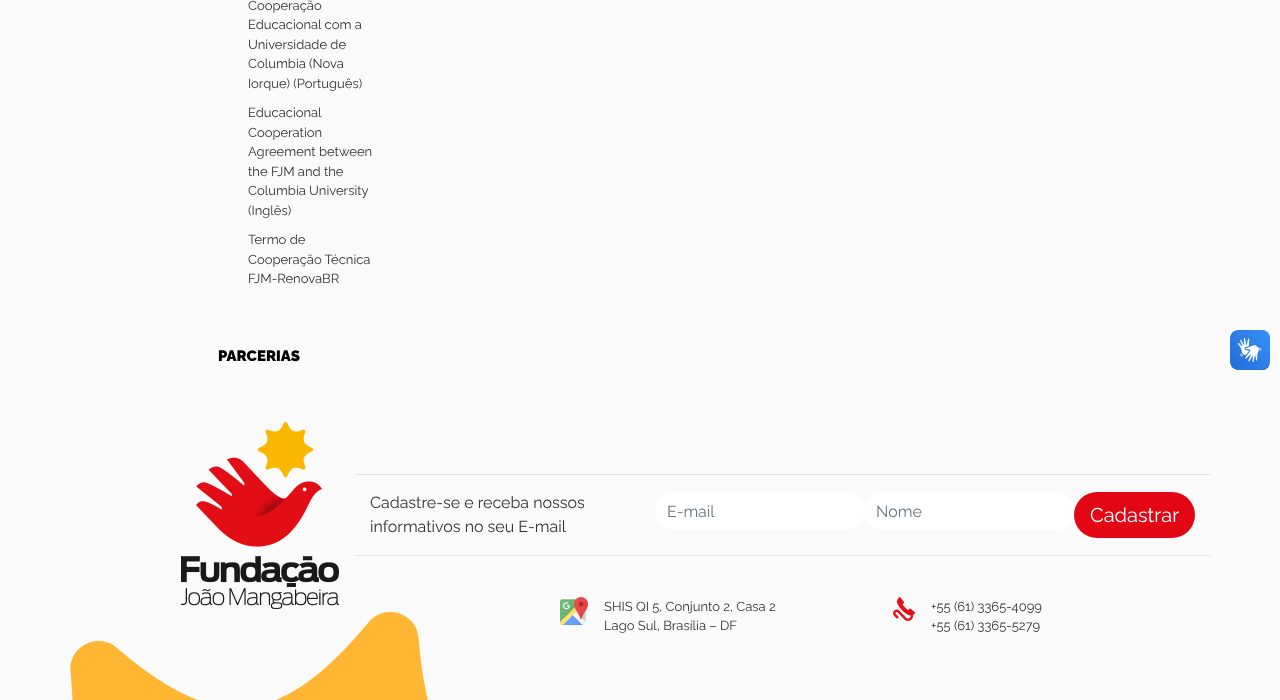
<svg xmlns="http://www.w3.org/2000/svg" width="1280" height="700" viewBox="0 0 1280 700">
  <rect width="100%" height="100%" fill="rgb(250,250,250)"/>
  <g font-family="Raleway" font-size="13" fill="rgb(51,51,51)">
    <text>
      <tspan x="248" y="10">Cooperação</tspan>
      <tspan x="248" y="29">Educacional com a</tspan>
      <tspan x="248" y="49">Universidade de</tspan>
      <tspan x="248" y="68">Columbia (Nova</tspan>
      <tspan x="248" y="88">Iorque) (Português)</tspan>
    </text>
    <text>
      <tspan x="248" y="117">Educacional</tspan>
      <tspan x="248" y="137">Cooperation</tspan>
      <tspan x="248" y="156">Agreement between</tspan>
      <tspan x="248" y="176">the FJM and the</tspan>
      <tspan x="248" y="195">Columbia University</tspan>
      <tspan x="248" y="215">(Inglês)</tspan>
    </text>
    <text>
      <tspan x="248" y="244">Termo de</tspan>
      <tspan x="248" y="264">Cooperação Técnica</tspan>
      <tspan x="248" y="283">FJM-RenovaBR</tspan>
    </text>
  </g>
  <text x="218" y="361" font-family="Raleway" font-size="15" font-weight="900" fill="rgb(0,0,0)">PARCERIAS</text>
  <image x="181" y="422" width="158" height="187" href="pic1.png"/>
  <rect x="355" y="474" width="855" height="1" fill="rgb(222,226,230)"/>
  <rect x="355" y="555" width="855" height="1" fill="rgb(222,226,230)"/>
  <g font-family="Raleway" font-size="16" fill="rgb(51,51,51)">
    <text>
      <tspan x="370" y="508">Cadastre-se e receba nossos</tspan>
      <tspan x="370" y="532">informativos no seu E-mail</tspan>
    </text>
  </g>
  <rect x="655" y="492" width="210" height="38" rx="19" fill="rgb(255,255,255)"/>
  <text x="667" y="517" font-family="Raleway" font-size="16" fill="rgb(108,117,125)">E-mail</text>
  <rect x="864" y="492" width="211" height="38" rx="19" fill="rgb(255,255,255)"/>
  <text x="876" y="517" font-family="Raleway" font-size="16" fill="rgb(108,117,125)">Nome</text>
  <rect x="1074" y="492" width="121" height="46" rx="23" fill="rgb(227,6,21)"/>
  <text x="1090" y="522" font-family="Raleway" font-size="20" fill="rgb(255,255,255)">Cadastrar</text>
  <image x="70" y="612" width="358" height="88" href="pic2.png"/>
  <image x="560" y="597" width="28" height="28" href="pic3.png"/>
  <g font-family="Raleway" font-size="13" fill="rgb(51,51,51)">
    <text>
      <tspan x="604" y="611">SHIS QI 5, Conjunto 2, Casa 2</tspan>
      <tspan x="604" y="630">Lago Sul, Brasília – DF</tspan>
    </text>
  </g>
  <image x="893" y="597" width="22" height="24" href="pic4.png"/>
  <g font-family="Raleway" font-size="13" fill="rgb(51,51,51)">
    <text>
      <tspan x="931" y="611">+55 (61) 3365-4099</tspan>
      <tspan x="931" y="630">+55 (61) 3365-5279</tspan>
    </text>
  </g>
  <image x="1230" y="330" width="40" height="40" href="pic5.png"/>
  <image x="1230" y="330" width="40" height="40" href="pic6.png"/>
</svg>
